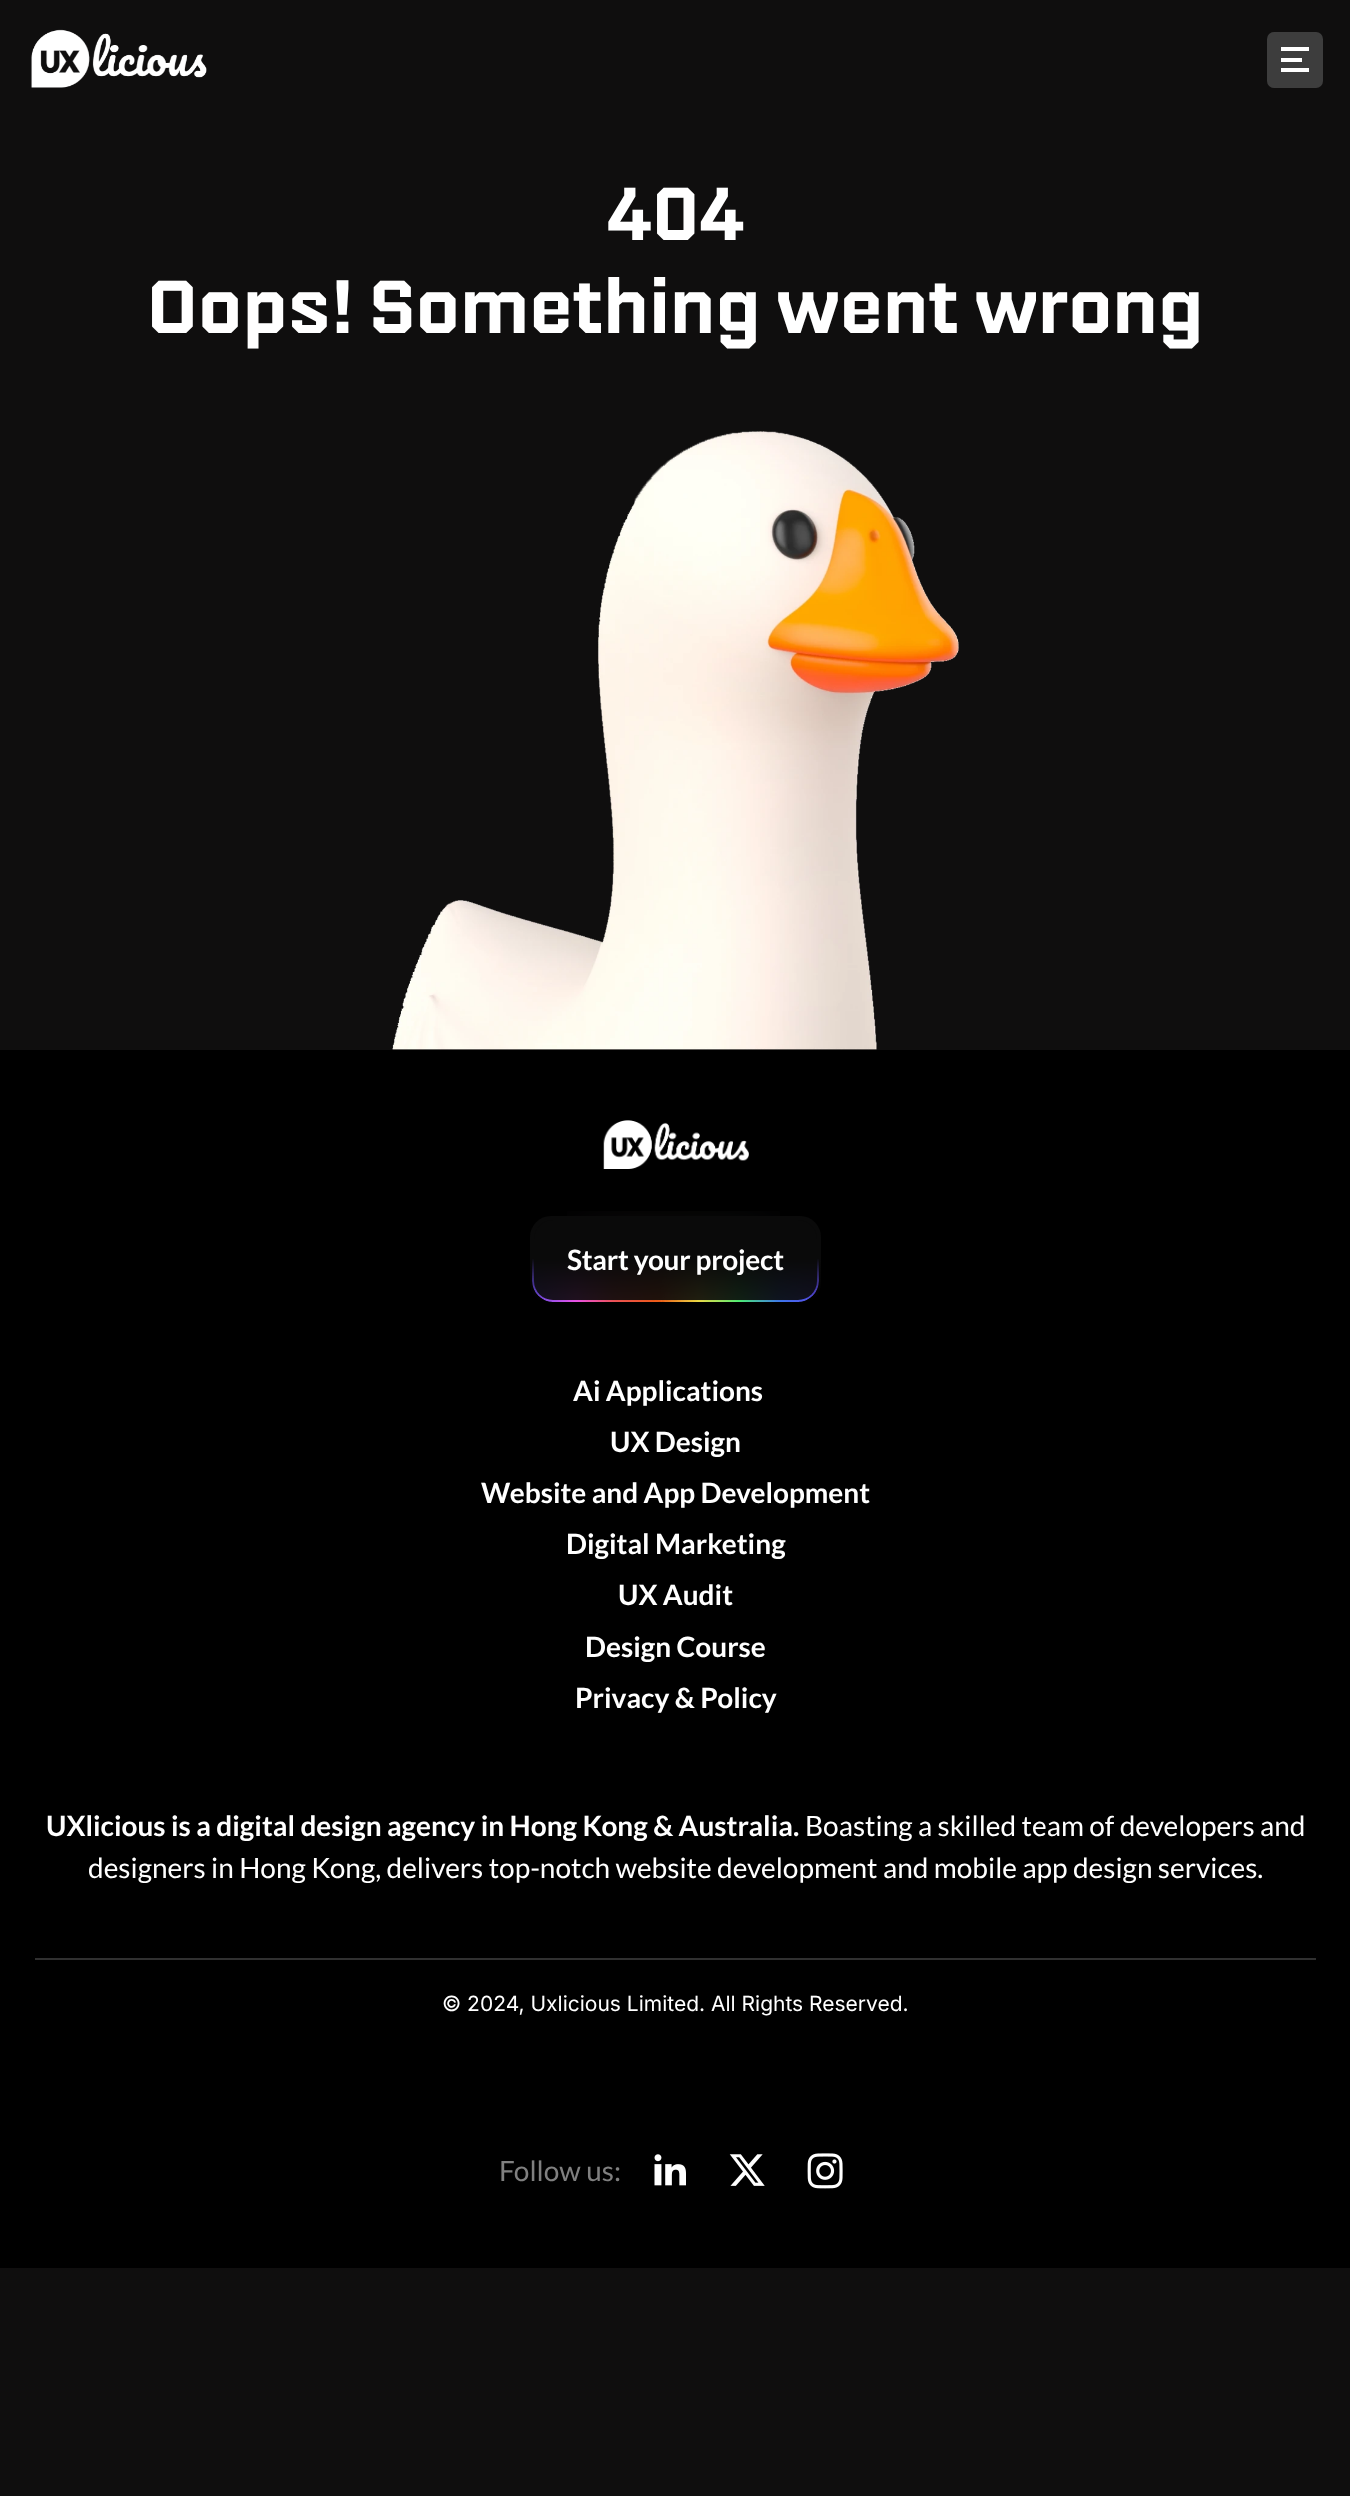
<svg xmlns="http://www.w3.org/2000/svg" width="1350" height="2496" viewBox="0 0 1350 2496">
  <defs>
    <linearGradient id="g1" gradientUnits="userSpaceOnUse" x1="676" y1="1216" x2="676" y2="1304"><stop offset="0.48" stop-color="rgb(10,10,10)"/><stop offset="1" stop-color="rgb(10,10,10)" stop-opacity="0"/></linearGradient>
  </defs>
  <rect width="100%" height="100%" fill="rgb(15,14,14)"/>
  <image x="31" y="29" width="176" height="59" href="pic1.png"/>
  <rect x="1267" y="32" width="56" height="56" rx="7" fill="rgb(61,61,61)"/>
  <rect x="1281" y="47" width="28" height="4" fill="rgb(255,255,255)"/>
  <rect x="1281" y="58" width="21" height="4" fill="rgb(255,255,255)"/>
  <rect x="1281" y="68" width="28" height="4" fill="rgb(255,255,255)"/>
  <g font-family="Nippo" font-size="75.25" font-weight="500" fill="rgb(255,255,255)">
    <text x="607" y="240">404</text>
    <text x="147" y="333">Oops! Something went wrong</text>
  </g>
  <image x="392" y="431" width="567" height="619" href="pic2.png"/>
  <rect x="0" y="1050" width="1350" height="1218" fill="rgb(0,0,0)"/>
  <image x="603" y="1120" width="146" height="49" href="pic3.png"/>
  <image x="567" y="1211" width="213" height="5" href="pic4.png"/>
  <image x="532" y="1259" width="287" height="43" href="pic5.png"/>
  <rect x="530" y="1216" width="291" height="88" rx="21" fill="url(#g1)"/>
  <rect x="534" y="1220" width="283" height="80" rx="19" fill="rgba(10,10,10,0.9)"/>
  <text x="567" y="1270" font-family="Lato" font-size="28" font-weight="bold" letter-spacing="-0.25" fill="rgb(255,255,255)">Start your project</text>
  <g font-family="Lato" font-size="28" font-weight="bold" fill="rgb(255,255,255)">
    <text x="573" y="1401">Ai Applications</text>
    <text x="610" y="1452">UX Design</text>
    <text x="481" y="1503">Website and App Development</text>
    <text x="566" y="1554">Digital Marketing</text>
    <text x="618" y="1605">UX Audit</text>
    <text x="585" y="1657">Design Course</text>
    <text x="575" y="1708">Privacy &amp; Policy</text>
    <text x="46" y="1836">UXlicious is a digital design agency in Hong Kong &amp; Australia.</text>
  </g>
  <g font-family="Lato" font-size="28" fill="rgb(255,255,255)">
    <text x="805" y="1836">Boasting a skilled team of developers and</text>
    <text x="88" y="1878">designers in Hong Kong, delivers top-notch website development and mobile app design services.</text>
  </g>
  <rect x="35" y="1958" width="1281" height="2" fill="rgb(48,48,48)"/>
  <text x="442" y="2011" font-family="Inter" font-size="21" fill="rgb(255,255,255)">© 2024, Uxlicious Limited. All Rights Reserved.</text>
  <text x="499" y="2181" font-family="Lato" font-size="28" fill="rgb(128,128,128)">Follow us:</text>
  <image x="654" y="2154" width="32" height="32" href="pic6.png"/>
  <image x="729" y="2154" width="36" height="32" href="pic7.png"/>
  <image x="807" y="2153" width="36" height="36" href="pic8.png"/>
</svg>
